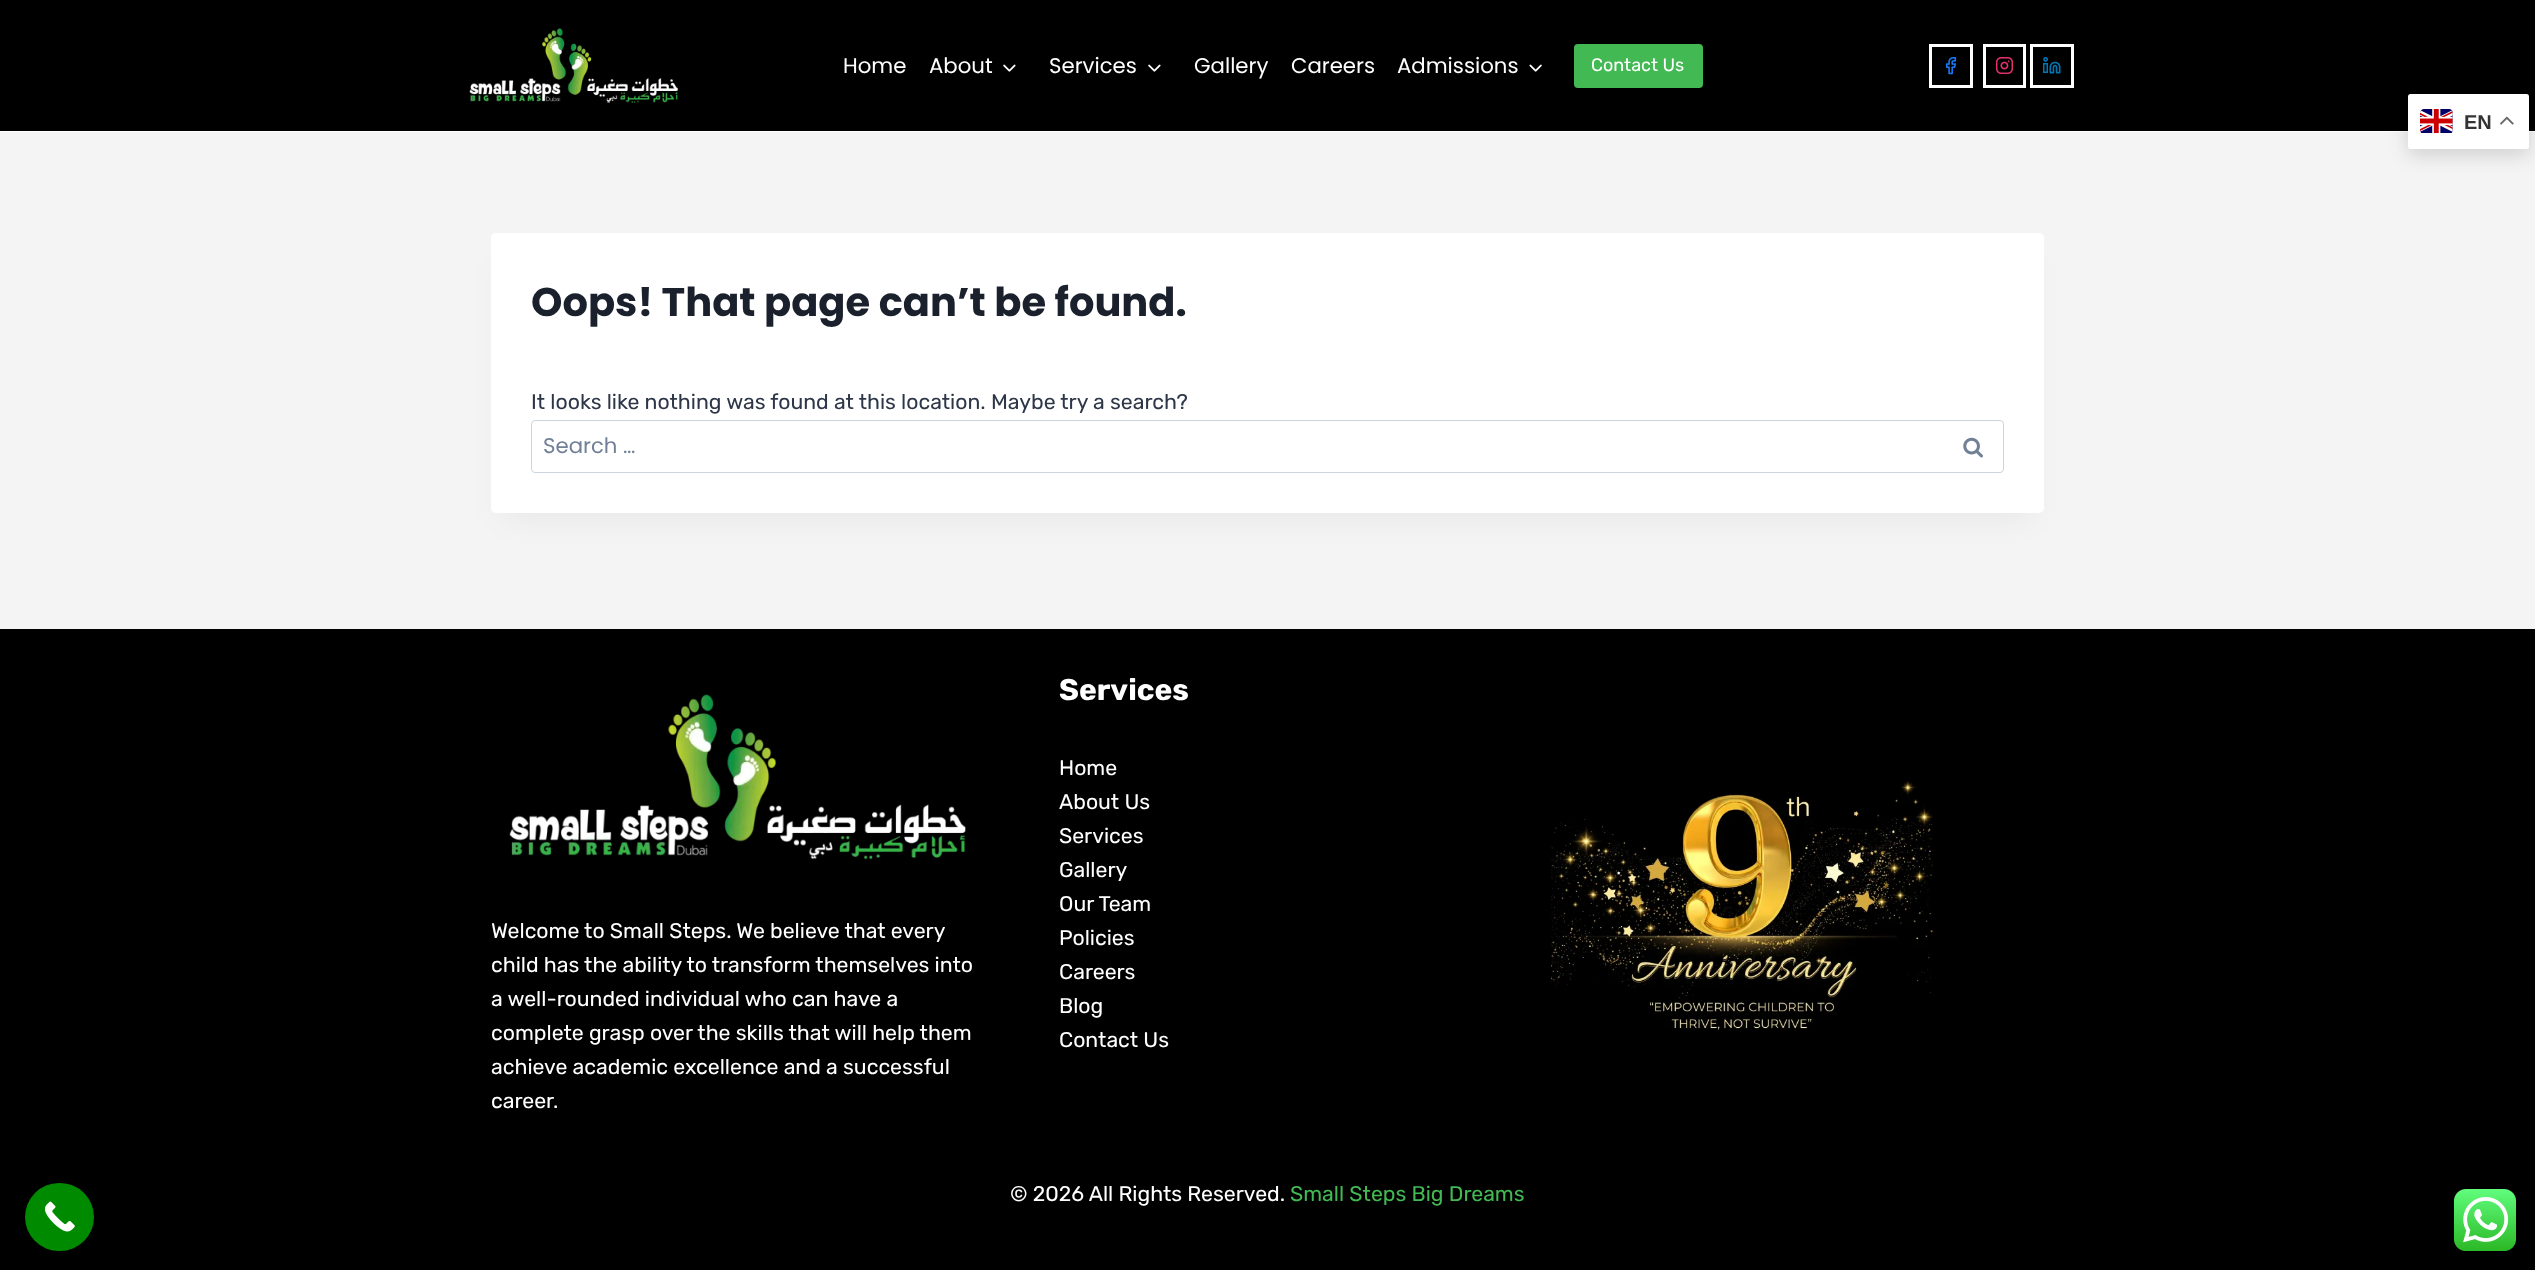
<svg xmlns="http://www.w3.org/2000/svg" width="2535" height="1270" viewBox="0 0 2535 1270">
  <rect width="100%" height="100%" fill="rgb(244,244,244)"/>
  <rect x="0" y="131" width="2535" height="1" fill="rgb(255,255,255)"/>
  <rect x="0" y="0" width="2535" height="131" fill="rgb(0,0,0)"/>
  <image x="469" y="28" width="209" height="75" href="pic1.png"/>
  <g font-family="Poppins" font-size="21.25" fill="rgb(255,255,255)">
    <text x="843" y="73">Home</text>
    <text x="929" y="73">About</text>
  </g>
  <image x="1003" y="64" width="13" height="8" href="pic2.png"/>
  <text x="1049" y="73" font-family="Poppins" font-size="21.25" fill="rgb(255,255,255)">Services</text>
  <image x="1148" y="64" width="13" height="8" href="pic2.png"/>
  <g font-family="Poppins" font-size="21.25" fill="rgb(255,255,255)">
    <text x="1194" y="73">Gallery</text>
    <text x="1291" y="73">Careers</text>
    <text x="1397" y="73">Admissions</text>
  </g>
  <image x="1529" y="64" width="13" height="8" href="pic3.png"/>
  <rect x="1574" y="44" width="129" height="44" rx="4" fill="rgb(67,185,83)"/>
  <text x="1591" y="71" font-family="Rubik" font-size="18" fill="rgb(255,255,255)">Contact Us</text>
  <rect x="1930.5" y="45.5" width="41" height="41" fill="none" stroke="rgb(255,255,255)" stroke-width="3"/>
  <image x="1945" y="57" width="12" height="18" href="pic4.png"/>
  <rect x="1984.5" y="45.5" width="40" height="41" fill="none" stroke="rgb(255,255,255)" stroke-width="3"/>
  <image x="1996" y="57" width="17" height="17" href="pic5.png"/>
  <rect x="2031.5" y="45.5" width="41" height="41" fill="none" stroke="rgb(255,255,255)" stroke-width="3"/>
  <image x="2043" y="57" width="18" height="17" href="pic6.png"/>
  <rect x="504" y="264" width="1527" height="255" fill="rgba(0,0,0,0.05)" filter="blur(15.5px)"/>
  <rect x="491" y="233" width="1553" height="280" rx="5" fill="rgb(255,255,255)"/>
  <text x="531" y="316" font-family="Poppins" font-size="40" font-weight="bold" fill="rgb(26,32,44)">Oops! That page can’t be found.</text>
  <text x="531" y="409" font-family="Rubik" font-size="21.25" fill="rgb(45,55,72)">It looks like nothing was found at this location. Maybe try a search?</text>
  <rect x="531.5" y="420.5" width="1472" height="52" rx="3.5" fill="none" stroke="rgb(203,213,224)"/>
  <text x="543" y="453" font-family="Poppins" font-size="21.25" fill="rgb(113,128,150)">Search …</text>
  <image x="1963" y="437" width="20" height="21" href="pic7.png"/>
  <rect x="0" y="629" width="2535" height="641" fill="rgb(0,0,0)"/>
  <image x="509" y="694" width="457" height="166" href="pic8.png"/>
  <g font-family="Rubik" font-size="21.25" fill="rgb(255,255,255)">
    <text>
      <tspan x="491" y="938">Welcome to Small Steps. We believe that every</tspan>
      <tspan x="491" y="972">child has the ability to transform themselves into</tspan>
      <tspan x="491" y="1006">a well-rounded individual who can have a</tspan>
      <tspan x="491" y="1040">complete grasp over the skills that will help them</tspan>
      <tspan x="491" y="1074">achieve academic excellence and a successful</tspan>
      <tspan x="491" y="1108">career.</tspan>
    </text>
  </g>
  <text x="1059" y="700" font-family="Rubik" font-size="30" font-weight="bold" fill="rgb(255,255,255)">Services</text>
  <g font-family="Rubik" font-size="21.25" fill="rgb(255,255,255)">
    <text>
      <tspan x="1059" y="775">Home</tspan>
      <tspan x="1059" y="809">About Us</tspan>
      <tspan x="1059" y="843">Services</tspan>
      <tspan x="1059" y="877">Gallery</tspan>
      <tspan x="1059" y="911">Our Team</tspan>
      <tspan x="1059" y="945">Policies</tspan>
      <tspan x="1059" y="979">Careers</tspan>
      <tspan x="1059" y="1013">Blog</tspan>
      <tspan x="1059" y="1047">Contact Us</tspan>
    </text>
  </g>
  <image x="1551" y="781" width="382" height="249" href="pic9.png"/>
  <text x="1010" y="1201" font-family="Rubik" font-size="21.25" fill="rgb(255,255,255)">© 2026 All Rights Reserved.</text>
  <text x="1290" y="1201" font-family="Rubik" font-size="21.25" fill="rgb(67,185,83)">Small Steps Big Dreams</text>
  <rect x="2408" y="100" width="121" height="55" rx="2.5" fill="rgba(0,0,0,0.15)" filter="blur(9.5px)"/>
  <rect x="2408" y="94" width="121" height="55" rx="2.5" fill="rgb(255,255,255)"/>
  <image x="2420" y="109" width="33" height="25" href="pic10.png"/>
  <text x="2464" y="129" font-family="Liberation Sans" font-size="20" font-weight="bold" fill="rgb(51,51,51)">EN</text>
  <image x="2500" y="116" width="14" height="9" href="pic11.png"/>
  <rect x="25" y="1183" width="69" height="68" rx="34" fill="rgb(0,138,0)"/>
  <image x="44" y="1201" width="31" height="31" href="pic12.png"/>
  <image x="2454" y="1189" width="62" height="62" href="pic13.png"/>
</svg>
